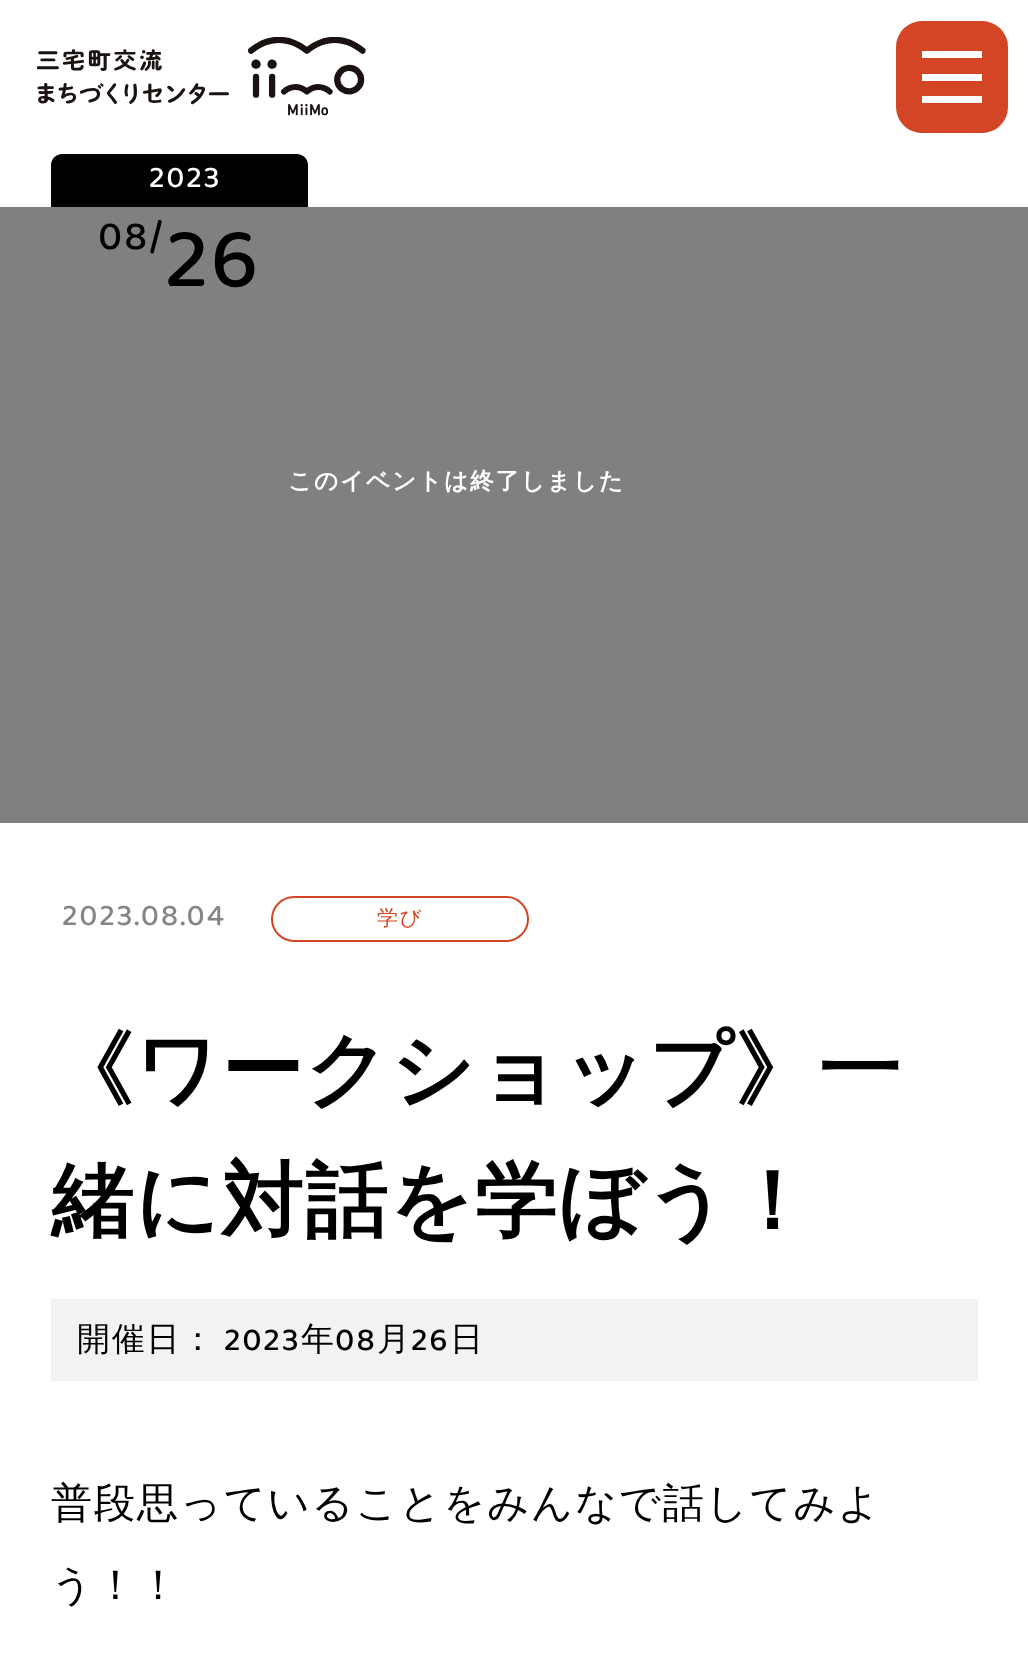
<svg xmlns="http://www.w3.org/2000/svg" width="1028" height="1662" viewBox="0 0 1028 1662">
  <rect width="100%" height="100%" fill="rgb(255,255,255)"/>
  <rect x="0" y="207" width="1028" height="616" fill="rgb(128,128,128)"/>
  <image x="37" y="37" width="329" height="79" href="pic1.png"/>
  <rect x="896" y="21" width="112" height="112" rx="26" fill="rgb(212,69,37)"/>
  <rect x="922" y="74" width="60" height="7" fill="rgb(255,255,255)"/>
  <rect x="922" y="51" width="60" height="7" fill="rgb(255,255,255)"/>
  <rect x="922" y="96" width="60" height="7" fill="rgb(255,255,255)"/>
  <path d="M62 154H297C303 154 308 159 308 165V207H51V165C51 159 56 154 62 154Z" fill="rgb(0,0,0)"/>
  <text x="149" y="187" font-family="'Baloo Tammudu 2'" font-size="31" font-weight="500" letter-spacing="1.75" fill="rgb(255,255,255)">2023</text>
  <text x="98" y="249" font-family="'Baloo Tammudu 2'" font-size="41.2" font-weight="500" letter-spacing="1.75" fill="rgb(0,0,0)">08/</text>
  <text x="165" y="286" font-family="'Baloo Tammudu 2'" font-size="87" font-weight="500" letter-spacing="1.75" fill="rgb(0,0,0)">26</text>
  <text x="288" y="489" font-family="WenQuanYi Zen Hei" font-size="23.7" font-weight="bold" letter-spacing="1.75" fill="rgb(255,255,255)">このイベントは終了しました</text>
  <text x="62" y="925" font-family="'Baloo Tammudu 2'" font-size="31" font-weight="500" letter-spacing="1.75" fill="rgb(133,133,133)">2023.08.04</text>
  <rect x="272" y="897" width="256" height="44" rx="22" fill="none" stroke="rgb(212,69,37)" stroke-width="2"/>
  <text x="377" y="925" font-family="WenQuanYi Zen Hei" font-size="21" font-weight="500" letter-spacing="1.75" fill="rgb(212,69,37)">学び</text>
  <g font-family="WenQuanYi Zen Hei" font-size="82.25" font-weight="bold" letter-spacing="1.75" fill="rgb(0,0,0)">
    <text>
      <tspan x="51" y="1098">《ワークショップ》一</tspan>
      <tspan x="51" y="1229">緒に対話を学ぼう！</tspan>
    </text>
  </g>
  <rect x="51" y="1299" width="927" height="82" fill="rgb(242,242,243)"/>
  <text x="77" y="1350" font-family="WenQuanYi Zen Hei" font-size="33" font-weight="500" letter-spacing="1.75" fill="rgb(0,0,0)">開催日：</text>
  <text x="224" y="1350" font-family="'Baloo Tammudu 2'" font-size="33" font-weight="500" letter-spacing="1.75" fill="rgb(0,0,0)">2023</text>
  <text x="301" y="1350" font-family="WenQuanYi Zen Hei" font-size="33" font-weight="500" letter-spacing="1.75" fill="rgb(0,0,0)">年</text>
  <text x="335" y="1350" font-family="'Baloo Tammudu 2'" font-size="33" font-weight="500" letter-spacing="1.75" fill="rgb(0,0,0)">08</text>
  <text x="377" y="1350" font-family="WenQuanYi Zen Hei" font-size="33" font-weight="500" letter-spacing="1.75" fill="rgb(0,0,0)">月</text>
  <text x="411" y="1350" font-family="'Baloo Tammudu 2'" font-size="33" font-weight="500" letter-spacing="1.75" fill="rgb(0,0,0)">26</text>
  <text x="450" y="1350" font-family="WenQuanYi Zen Hei" font-size="33" font-weight="500" letter-spacing="1.75" fill="rgb(0,0,0)">日</text>
  <g font-family="WenQuanYi Zen Hei" font-size="41.2" font-weight="500" letter-spacing="1.75" fill="rgb(0,0,0)">
    <text>
      <tspan x="51" y="1517">普段思っていることをみんなで話してみよ</tspan>
      <tspan x="51" y="1599">う！！</tspan>
    </text>
  </g>
</svg>
